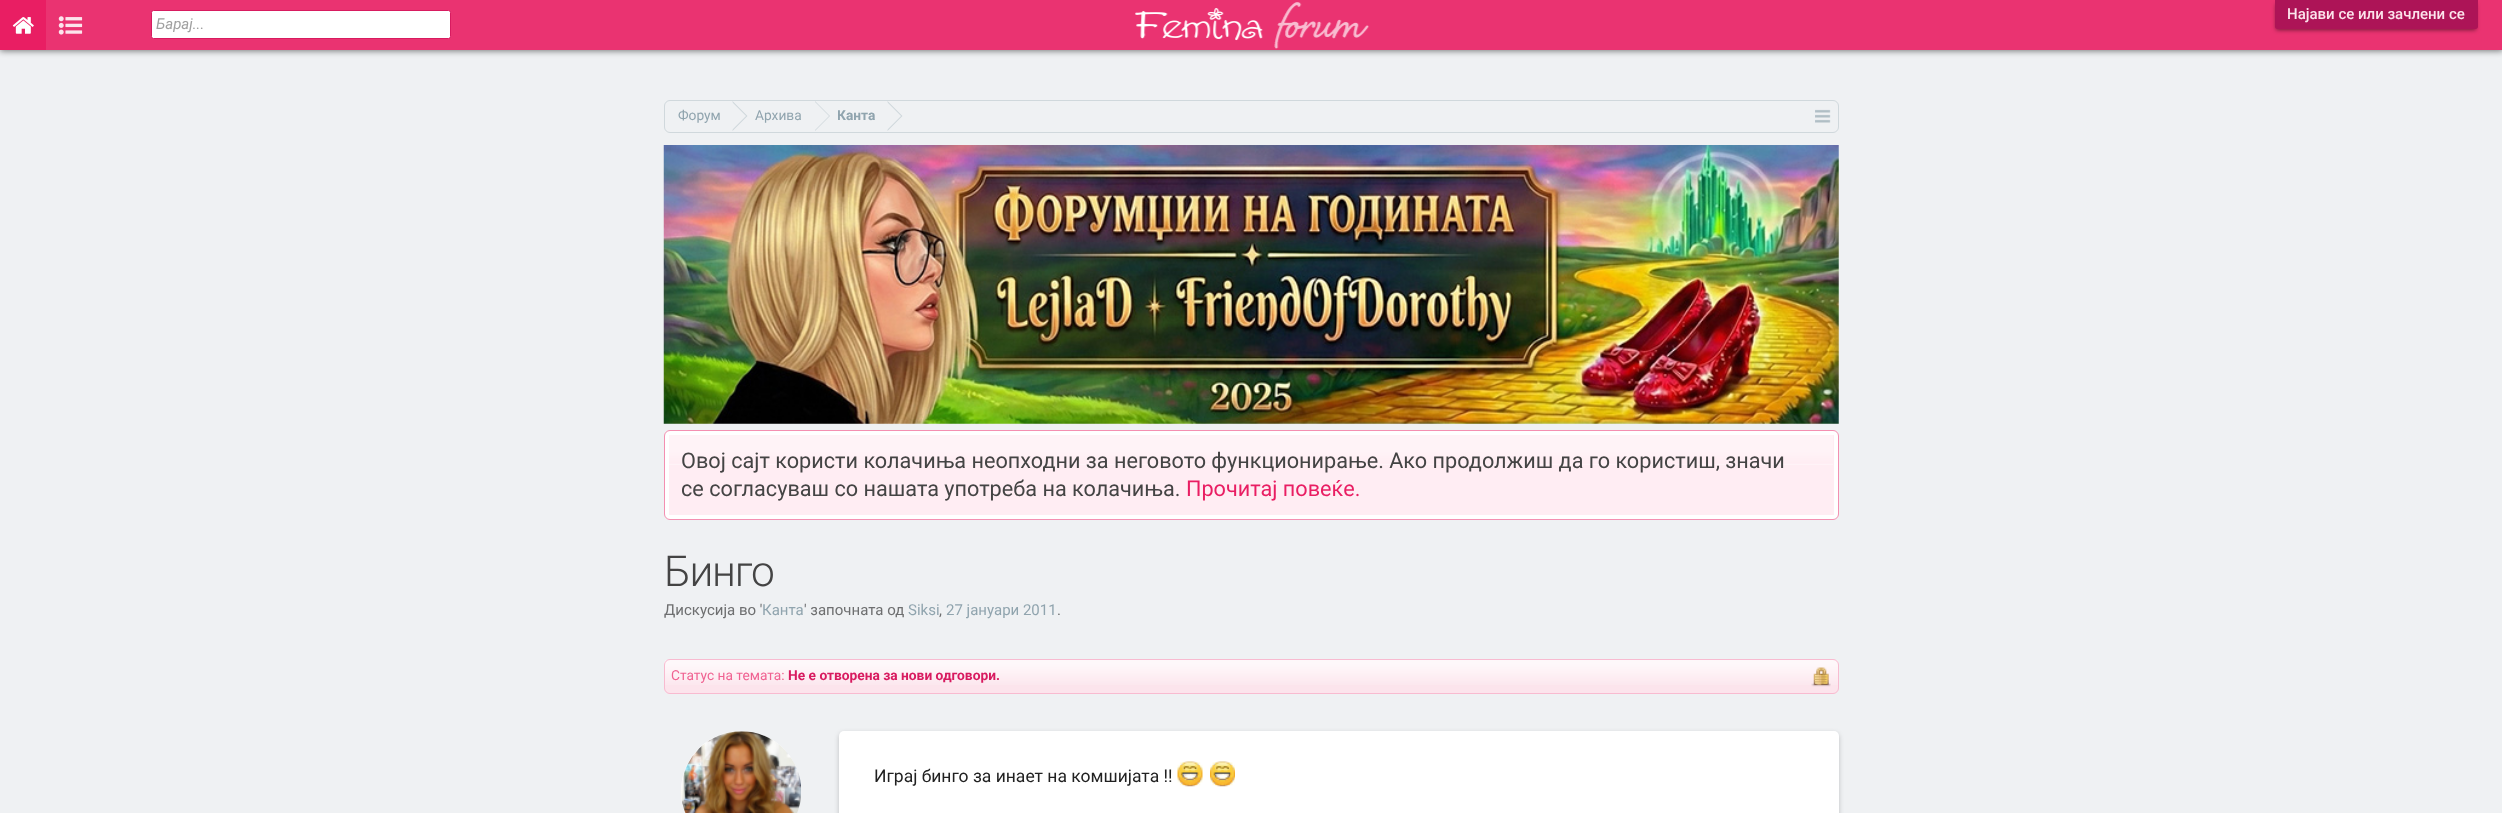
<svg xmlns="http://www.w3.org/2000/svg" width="2502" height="813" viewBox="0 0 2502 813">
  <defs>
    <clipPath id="clip1"><rect x="838" y="101" width="37" height="30"/></clipPath>
  </defs>
  <rect width="100%" height="100%" fill="rgb(239,241,243)"/>
  <rect x="0" y="1" width="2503" height="50" fill="rgba(0,0,0,0.5)" filter="blur(3px)"/>
  <rect x="46" y="0" width="2456" height="50" fill="rgb(234,51,113)"/>
  <rect x="2276" y="4" width="200" height="26" rx="1" fill="rgba(0,0,0,0.5)" filter="blur(2px)"/>
  <path d="M2275 0H2478V26.5C2478 28 2477 29 2475.5 29H2277.5C2276 29 2275 28 2275 26.5Z" fill="rgb(173,20,87)"/>
  <text x="2287" y="19" font-family="Roboto" font-size="15" font-weight="500" fill="rgb(252,228,236)">Најави се или зачлени се</text>
  <rect x="0" y="0" width="46" height="50" fill="rgb(233,30,99)"/>
  <image x="12" y="17" width="22" height="17" href="pic1.png"/>
  <image x="58" y="16" width="25" height="19" href="pic2.png"/>
  <rect x="151.5" y="10.5" width="299" height="28" rx="2" fill="rgb(255,255,255)" stroke="rgb(216,27,96)"/>
  <text x="156" y="29" font-family="Roboto" font-size="15" font-style="italic" fill="rgb(160,160,160)">Барај...</text>
  <image x="1135" y="2" width="234" height="47" href="pic3.png"/>
  <rect x="664.5" y="100.5" width="1174" height="32" rx="5.5" fill="none" stroke="rgb(208,216,220)"/>
  <text x="678" y="120" font-family="Roboto" font-size="13.75" fill="rgb(144,164,174)">Форум</text>
  <path d="M732.5 131V101L747.5 116Z" fill="rgb(208,216,220)"/>
  <path d="M731 131V101L746 116Z" fill="rgb(239,241,243)"/>
  <text x="755" y="120" font-family="Roboto" font-size="13.75" fill="rgb(144,164,174)">Архива</text>
  <path d="M815 131V101L830 116Z" fill="rgb(208,216,220)"/>
  <path d="M814 131V101L829 116Z" fill="rgb(239,241,243)"/>
  <g clip-path="url(#clip1)">
    <text x="837" y="120" font-family="Roboto" font-size="13.75" font-weight="bold" fill="rgb(144,164,174)">Канта</text>
  </g>
  <path d="M887.5 131V101L902.5 116Z" fill="rgb(208,216,220)"/>
  <path d="M886 131V101L901 116Z" fill="rgb(239,241,243)"/>
  <image x="1815" y="109" width="16" height="14" href="pic4.png"/>
  <image x="663" y="145" width="1176" height="279" href="pic5.png"/>
  <rect x="664.5" y="430.5" width="1174" height="89" rx="5.5" fill="rgb(255,255,255)" stroke="rgb(244,143,177)"/>
  <rect x="669" y="435" width="1165" height="80" fill="rgb(255,237,243)"/>
  <image x="669" y="435" width="1164" height="30" href="pic6.png"/>
  <g font-family="Roboto" font-size="21.67" fill="rgb(68,68,68)">
    <text>
      <tspan x="681" y="468">Овој сајт користи колачиња неопходни за неговото функционирање. Ако продолжиш да го користиш, значи</tspan>
      <tspan x="681" y="496">се согласуваш со нашата употреба на колачиња.</tspan>
    </text>
  </g>
  <text x="1186" y="496" font-family="Roboto" font-size="21.67" fill="rgb(233,30,99)">Прочитај повеќе.</text>
  <text x="664" y="586" font-family="Roboto" font-size="42.5" font-weight="300" letter-spacing="-1.25" fill="rgb(68,68,68)">Бинго</text>
  <text x="664" y="615" font-family="Roboto" font-size="15" fill="rgb(110,111,112)">Дискусија во '</text>
  <text x="762" y="615" font-family="Roboto" font-size="15" fill="rgb(144,164,174)">Канта</text>
  <text x="804" y="615" font-family="Roboto" font-size="15" fill="rgb(110,111,112)">' започната од</text>
  <text x="908" y="615" font-family="Roboto" font-size="15" fill="rgb(144,164,174)">Siksi</text>
  <text x="939" y="615" font-family="Roboto" font-size="15" fill="rgb(110,111,112)">,</text>
  <text x="946" y="615" font-family="Roboto" font-size="15" fill="rgb(144,164,174)">27 јануари 2011</text>
  <text x="1057" y="615" font-family="Roboto" font-size="15" fill="rgb(110,111,112)">.</text>
  <rect x="664" y="659" width="1175" height="35" rx="6" fill="rgb(252,228,236)"/>
  <image x="664" y="660" width="1175" height="25" href="pic7.png"/>
  <rect x="664.5" y="659.5" width="1174" height="34" rx="5.5" fill="none" stroke="rgb(248,187,208)"/>
  <text x="671" y="680" font-family="Roboto" font-size="13.75" fill="rgb(240,98,146)">Статус на темата:</text>
  <text x="788" y="680" font-family="Roboto" font-size="13.75" font-weight="bold" fill="rgb(216,27,96)">Не е отворена за нови одговори.</text>
  <image x="1811" y="667" width="20" height="20" href="pic8.png"/>
  <circle cx="741" cy="791" r="60" fill="rgb(255,255,255)"/>
  <image x="681" y="731" width="120" height="82" href="pic9.png"/>
  <rect x="839" y="733" width="1000" height="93" rx="5" fill="rgba(0,0,0,0.2)" filter="blur(2.5px)"/>
  <rect x="839" y="731" width="1000" height="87" rx="5" fill="rgb(255,255,255)"/>
  <text x="874" y="782" font-family="Roboto" font-size="17.5" fill="rgb(33,33,33)">Играј бинго за инает на комшијата !!</text>
  <image x="1177" y="761" width="26" height="26" href="pic10.png"/>
  <image x="1210" y="761" width="25" height="26" href="pic11.png"/>
</svg>
